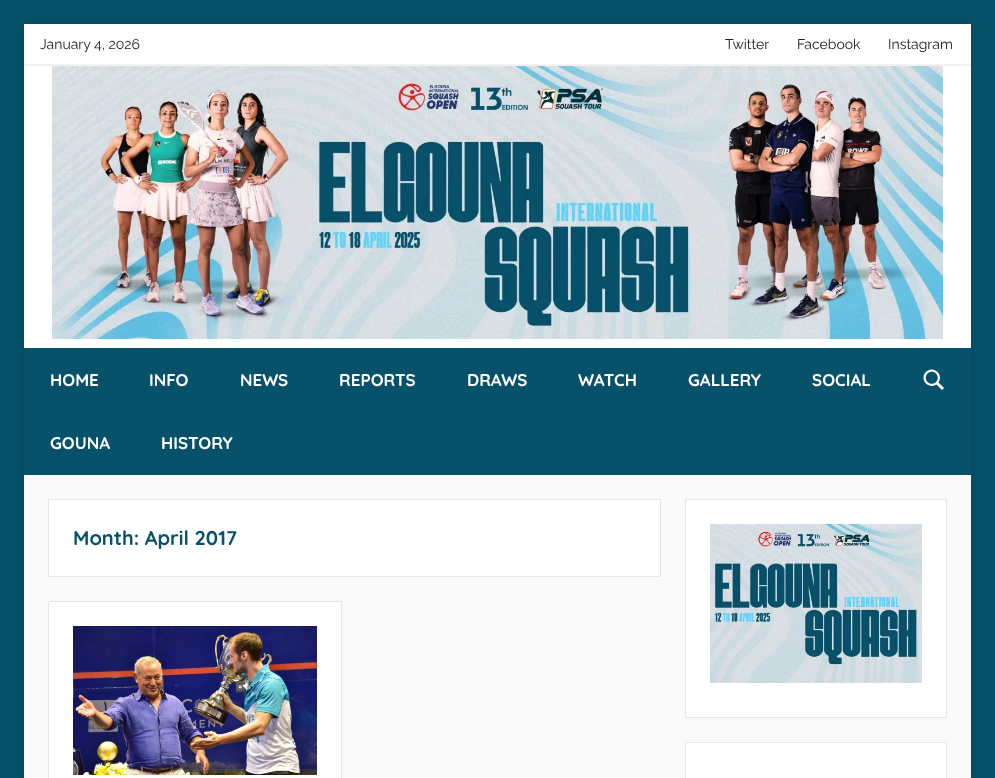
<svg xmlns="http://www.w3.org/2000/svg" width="995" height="778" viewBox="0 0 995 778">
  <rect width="100%" height="100%" fill="rgb(7,81,106)"/>
  <rect x="24" y="24" width="947" height="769" fill="rgba(0,0,0,0.15)" filter="blur(5px)"/>
  <rect x="24" y="475" width="947" height="303" fill="rgb(250,250,250)"/>
  <rect x="24" y="24" width="947" height="40" fill="rgb(255,255,255)"/>
  <rect x="24" y="64" width="947" height="2" fill="rgb(242,242,242)"/>
  <g font-family="Raleway" font-size="14" fill="rgb(32,32,32)">
    <text x="40" y="49">January 4, 2026</text>
    <text x="725" y="49">Twitter</text>
    <text x="797" y="49">Facebook</text>
    <text x="888" y="49">Instagram</text>
  </g>
  <rect x="24" y="66" width="947" height="282" fill="rgb(255,255,255)"/>
  <image x="52" y="66" width="891" height="273" href="pic1.png"/>
  <rect x="24" y="348" width="947" height="127" fill="rgb(7,81,106)"/>
  <g font-family="Quicksand" font-size="17" font-weight="bold" fill="rgb(255,255,255)">
    <text x="50" y="386">HOME</text>
    <text x="149" y="386">INFO</text>
    <text x="240" y="386">NEWS</text>
    <text x="339" y="386">REPORTS</text>
    <text x="467" y="386">DRAWS</text>
    <text x="578" y="386">WATCH</text>
    <text x="688" y="386">GALLERY</text>
    <text x="812" y="386">SOCIAL</text>
    <text x="50" y="449">GOUNA</text>
    <text x="161" y="449">HISTORY</text>
  </g>
  <image x="923" y="369" width="21" height="21" href="pic2.png"/>
  <rect x="48.5" y="499.5" width="612" height="77" fill="rgb(255,255,255)" stroke="rgb(230,230,230)"/>
  <text x="73" y="545" font-family="Quicksand" font-size="20" font-weight="bold" fill="rgb(7,81,106)">Month: April 2017</text>
  <rect x="48.5" y="601.5" width="293" height="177" fill="rgb(255,255,255)" stroke="rgb(230,230,230)"/>
  <image x="73" y="626" width="244" height="149" href="pic3.png"/>
  <rect x="685.5" y="499.5" width="261" height="218" fill="rgb(255,255,255)" stroke="rgb(230,230,230)"/>
  <image x="710" y="524" width="212" height="159" href="pic4.png"/>
  <rect x="685.5" y="742.5" width="261" height="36" fill="rgb(255,255,255)" stroke="rgb(230,230,230)"/>
</svg>
